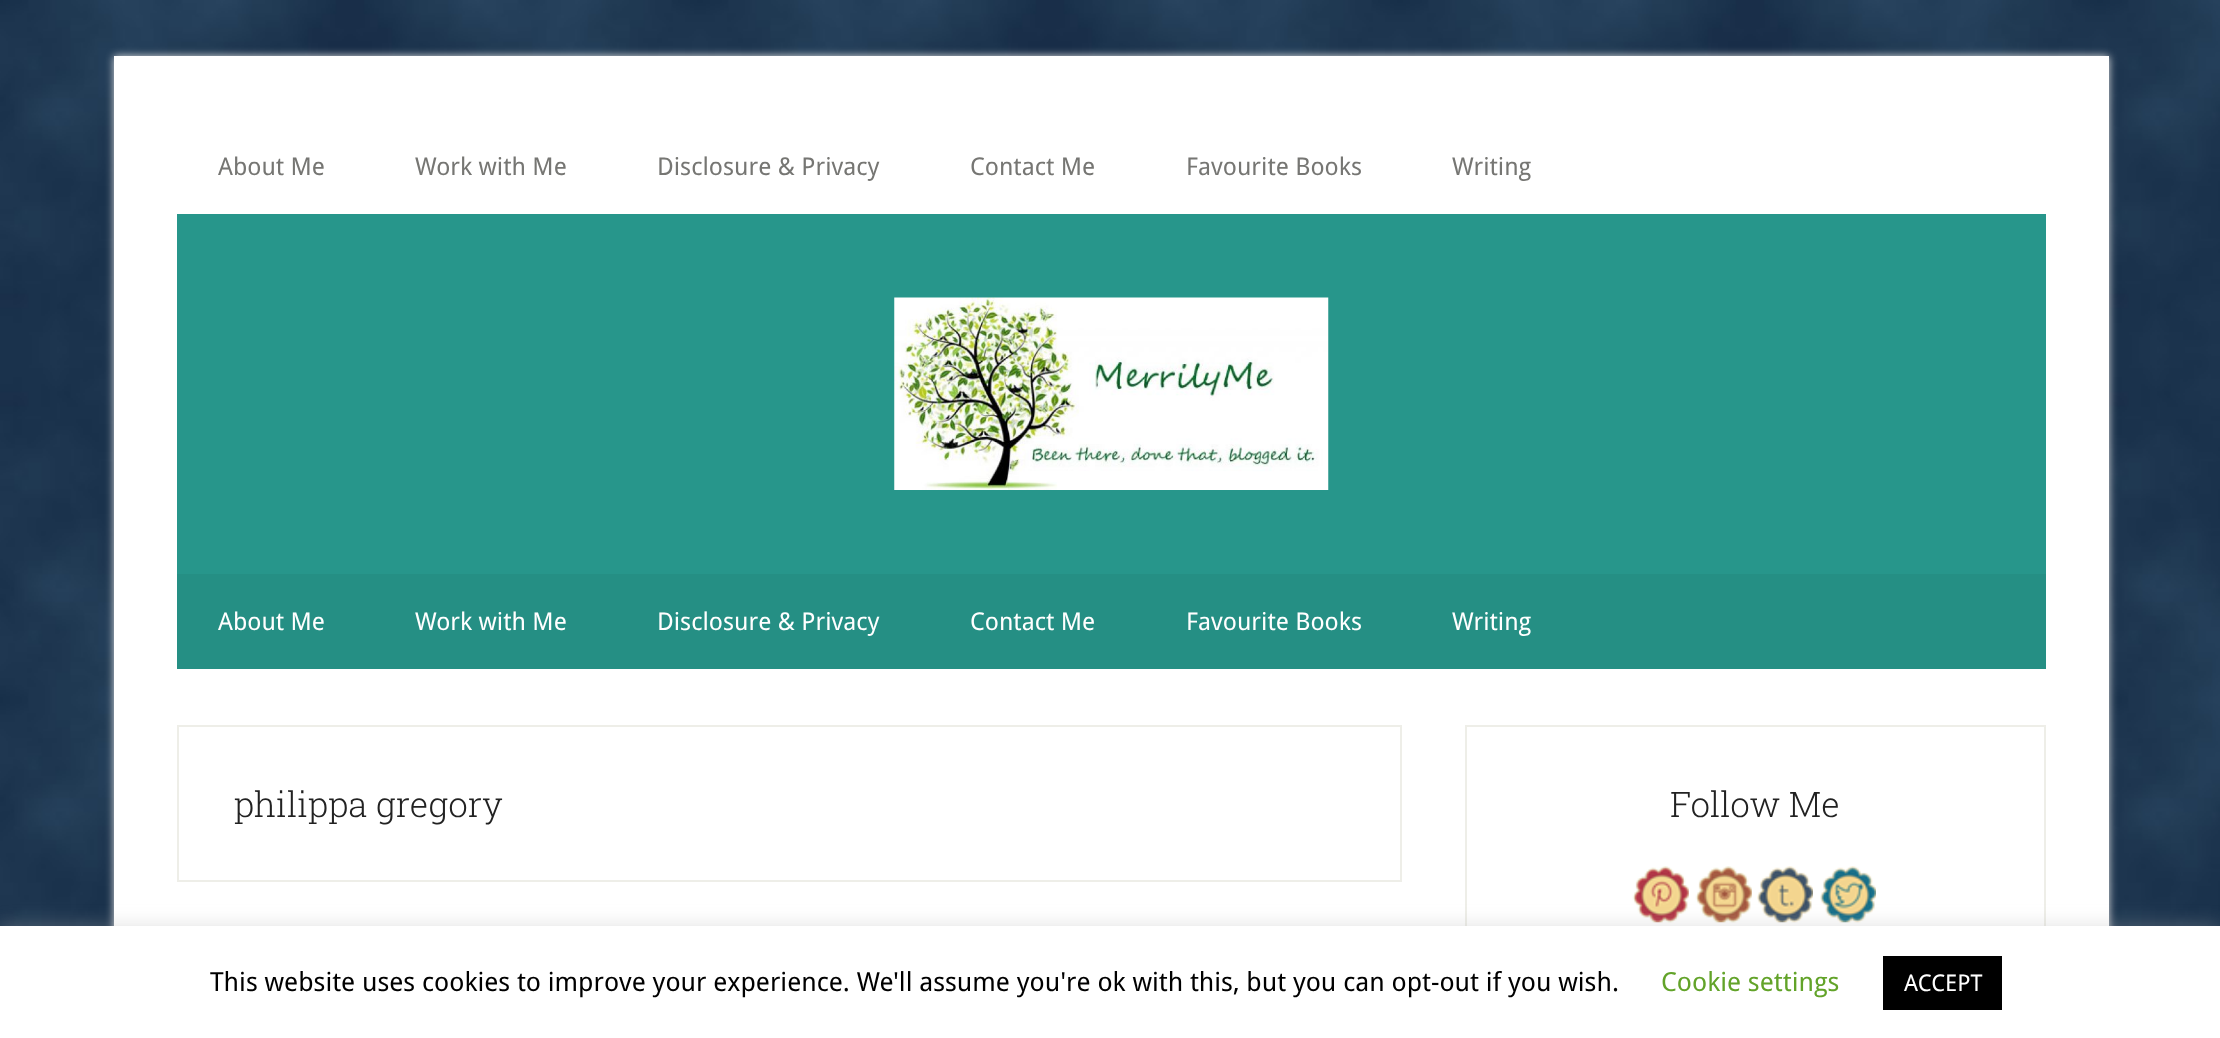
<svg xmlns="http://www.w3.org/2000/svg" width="2220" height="1038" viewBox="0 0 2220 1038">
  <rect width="100%" height="100%" fill="rgb(255,255,255)"/>
  <image x="0" y="0" width="2220" height="926" href="pic1.png"/>
  <rect x="114" y="56" width="1995" height="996" fill="rgb(221,221,221)" filter="blur(4.5px)"/>
  <rect x="114" y="56" width="1995" height="870" fill="rgb(255,255,255)"/>
  <g font-family="Droid Sans" font-size="24.5" fill="rgb(118,118,115)">
    <text x="218" y="175">About Me</text>
    <text x="415" y="175">Work with Me</text>
    <text x="657" y="175">Disclosure &amp; Privacy</text>
    <text x="970" y="175">Contact Me</text>
    <text x="1186" y="175">Favourite Books</text>
    <text x="1452" y="175">Writing</text>
  </g>
  <rect x="177" y="214" width="1869" height="360" fill="rgb(39,150,139)"/>
  <image x="894" y="297" width="435" height="193" href="pic2.png"/>
  <rect x="177" y="574" width="1869" height="95" fill="rgb(37,143,132)"/>
  <g font-family="Droid Sans" font-size="24.5" fill="rgb(255,255,255)">
    <text x="218" y="630">About Me</text>
    <text x="415" y="630">Work with Me</text>
    <text x="657" y="630">Disclosure &amp; Privacy</text>
    <text x="970" y="630">Contact Me</text>
    <text x="1186" y="630">Favourite Books</text>
    <text x="1452" y="630">Writing</text>
  </g>
  <rect x="178" y="726" width="1223" height="155" fill="none" stroke="rgb(238,238,232)" stroke-width="2"/>
  <text x="234" y="817" font-family="Roboto Slab" font-size="35" font-weight="300" fill="rgb(34,34,34)">philippa gregory</text>
  <rect x="1466" y="726" width="579" height="286" fill="none" stroke="rgb(238,238,232)" stroke-width="2"/>
  <text x="1670" y="817" font-family="Roboto Slab" font-size="35" font-weight="300" fill="rgb(34,34,34)">Follow Me</text>
  <image x="1632" y="866" width="57" height="57" href="pic3.png"/>
  <image x="1695" y="866" width="57" height="57" href="pic4.png"/>
  <image x="1757" y="866" width="56" height="57" href="pic5.png"/>
  <image x="1820" y="866" width="56" height="57" href="pic6.png"/>
  <rect x="0" y="924" width="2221" height="114" fill="rgba(172,171,171,0.3)" filter="blur(9px)"/>
  <rect x="0" y="926" width="2220" height="112" fill="rgb(255,255,255)"/>
  <text x="210" y="991" font-family="Droid Sans" font-size="26.25" fill="rgb(0,0,0)">This website uses cookies to improve your experience. We'll assume you're ok with this, but you can opt-out if you wish.</text>
  <text x="1661" y="991" font-family="Droid Sans" font-size="26.25" fill="rgb(98,163,41)">Cookie settings</text>
  <rect x="1883" y="956" width="119" height="54" fill="rgb(0,0,0)"/>
  <text x="1904" y="991" font-family="Droid Sans" font-size="23" fill="rgb(255,255,255)">ACCEPT</text>
</svg>
